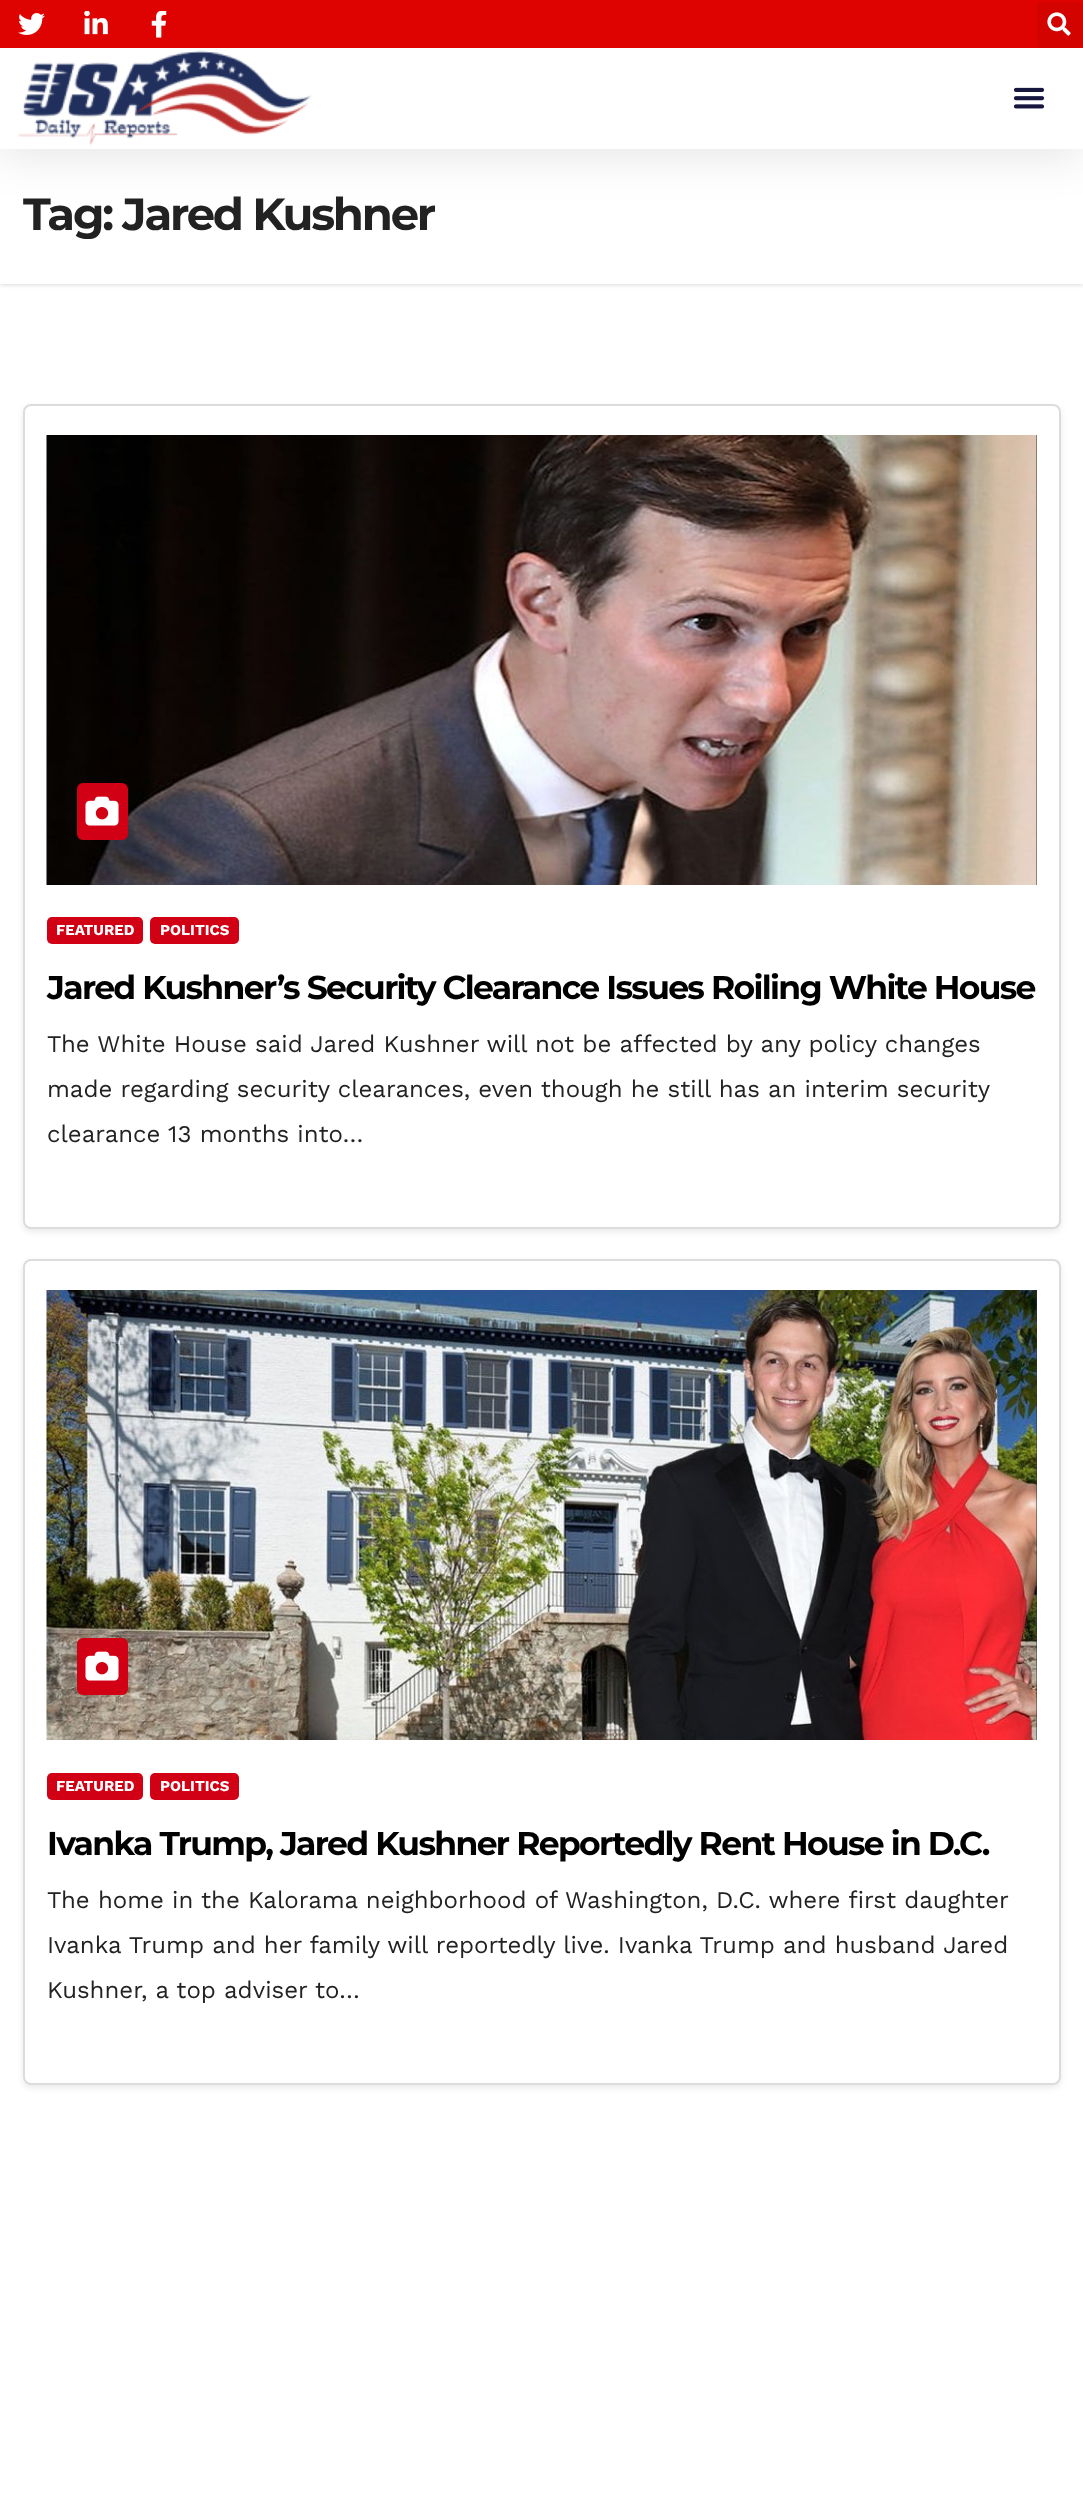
<svg xmlns="http://www.w3.org/2000/svg" width="1083" height="2509" viewBox="0 0 1083 2509">
  <rect width="100%" height="100%" fill="rgb(255,255,255)"/>
  <rect x="0" y="150" width="1083" height="135" fill="rgba(0,0,0,0.15)" filter="blur(2px)"/>
  <rect x="0" y="149" width="1083" height="135" fill="rgb(255,255,255)"/>
  <rect x="0" y="8" width="1083" height="148" fill="rgba(0,0,0,0.1)" filter="blur(22.5px)"/>
  <rect x="0" y="0" width="1083" height="48" fill="rgb(222,3,0)"/>
  <image x="18" y="13" width="27" height="22" href="pic1.png"/>
  <image x="84" y="11" width="24" height="24" href="pic2.png"/>
  <image x="151" y="11" width="16" height="27" href="pic3.png"/>
  <rect x="1037" y="2" width="46" height="46" rx="5" fill="rgb(211,3,0)"/>
  <image x="1047" y="12" width="24" height="24" href="pic4.png"/>
  <rect x="0" y="48" width="1083" height="101" fill="rgb(255,255,255)"/>
  <image x="18" y="50" width="294" height="96" href="pic5.png"/>
  <image x="1013" y="87" width="32" height="22" href="pic6.png"/>
  <text x="23" y="230" font-family="Montserrat" font-size="45" font-weight="bold" letter-spacing="-2.25" fill="rgb(34,34,34)">Tag: Jared Kushner</text>
  <rect x="23" y="407" width="1038" height="825" rx="8" fill="rgba(0,0,0,0.08)" filter="blur(3px)"/>
  <rect x="24" y="405" width="1036" height="823" rx="7" fill="rgb(255,255,255)" stroke="rgb(221,220,220)" stroke-width="2"/>
  <rect x="1036" y="435" width="1" height="450" fill="rgb(51,51,51)"/>
  <image x="46" y="435" width="991" height="450" href="pic7.png"/>
  <rect x="77" y="783" width="51" height="57" rx="6" fill="rgb(209,0,20)"/>
  <image x="85" y="796" width="34" height="30" href="pic8.png"/>
  <rect x="47" y="917" width="96" height="27" rx="5" fill="rgb(209,0,20)"/>
  <text x="56" y="935" font-family="Work Sans" font-size="15" font-weight="bold" fill="rgb(255,255,255)">FEATURED</text>
  <rect x="150" y="917" width="89" height="27" rx="5" fill="rgb(209,0,20)"/>
  <text x="160" y="935" font-family="Work Sans" font-size="15" font-weight="bold" fill="rgb(255,255,255)">POLITICS</text>
  <text x="47" y="999" font-family="Montserrat" font-size="33" font-weight="bold" letter-spacing="-1.65" fill="rgb(0,0,0)">Jared Kushner’s Security Clearance Issues Roiling White House</text>
  <g font-family="Work Sans" font-size="24" fill="rgb(34,34,34)">
    <text>
      <tspan x="47" y="1052">The White House said Jared Kushner will not be affected by any policy changes</tspan>
      <tspan x="47" y="1097">made regarding security clearances, even though he still has an interim security</tspan>
      <tspan x="47" y="1142">clearance 13 months into…</tspan>
    </text>
  </g>
  <rect x="23" y="1262" width="1038" height="826" rx="8" fill="rgba(0,0,0,0.08)" filter="blur(3px)"/>
  <rect x="24" y="1260" width="1036" height="824" rx="7" fill="rgb(255,255,255)" stroke="rgb(221,220,220)" stroke-width="2"/>
  <rect x="1036" y="1290" width="1" height="450" fill="rgb(51,51,51)"/>
  <image x="46" y="1290" width="991" height="450" href="pic9.png"/>
  <rect x="77" y="1638" width="51" height="57" rx="6" fill="rgb(209,0,20)"/>
  <image x="85" y="1651" width="34" height="30" href="pic8.png"/>
  <rect x="47" y="1773" width="96" height="27" rx="5" fill="rgb(209,0,20)"/>
  <text x="56" y="1791" font-family="Work Sans" font-size="15" font-weight="bold" fill="rgb(255,255,255)">FEATURED</text>
  <rect x="150" y="1773" width="89" height="27" rx="5" fill="rgb(209,0,20)"/>
  <text x="160" y="1791" font-family="Work Sans" font-size="15" font-weight="bold" fill="rgb(255,255,255)">POLITICS</text>
  <text x="47" y="1855" font-family="Montserrat" font-size="33" font-weight="bold" letter-spacing="-1.65" fill="rgb(0,0,0)">Ivanka Trump, Jared Kushner Reportedly Rent House in D.C.</text>
  <g font-family="Work Sans" font-size="24" fill="rgb(34,34,34)">
    <text>
      <tspan x="47" y="1908">The home in the Kalorama neighborhood of Washington, D.C. where first daughter</tspan>
      <tspan x="47" y="1953">Ivanka Trump and her family will reportedly live. Ivanka Trump and husband Jared</tspan>
      <tspan x="47" y="1998">Kushner, a top adviser to…</tspan>
    </text>
  </g>
</svg>
